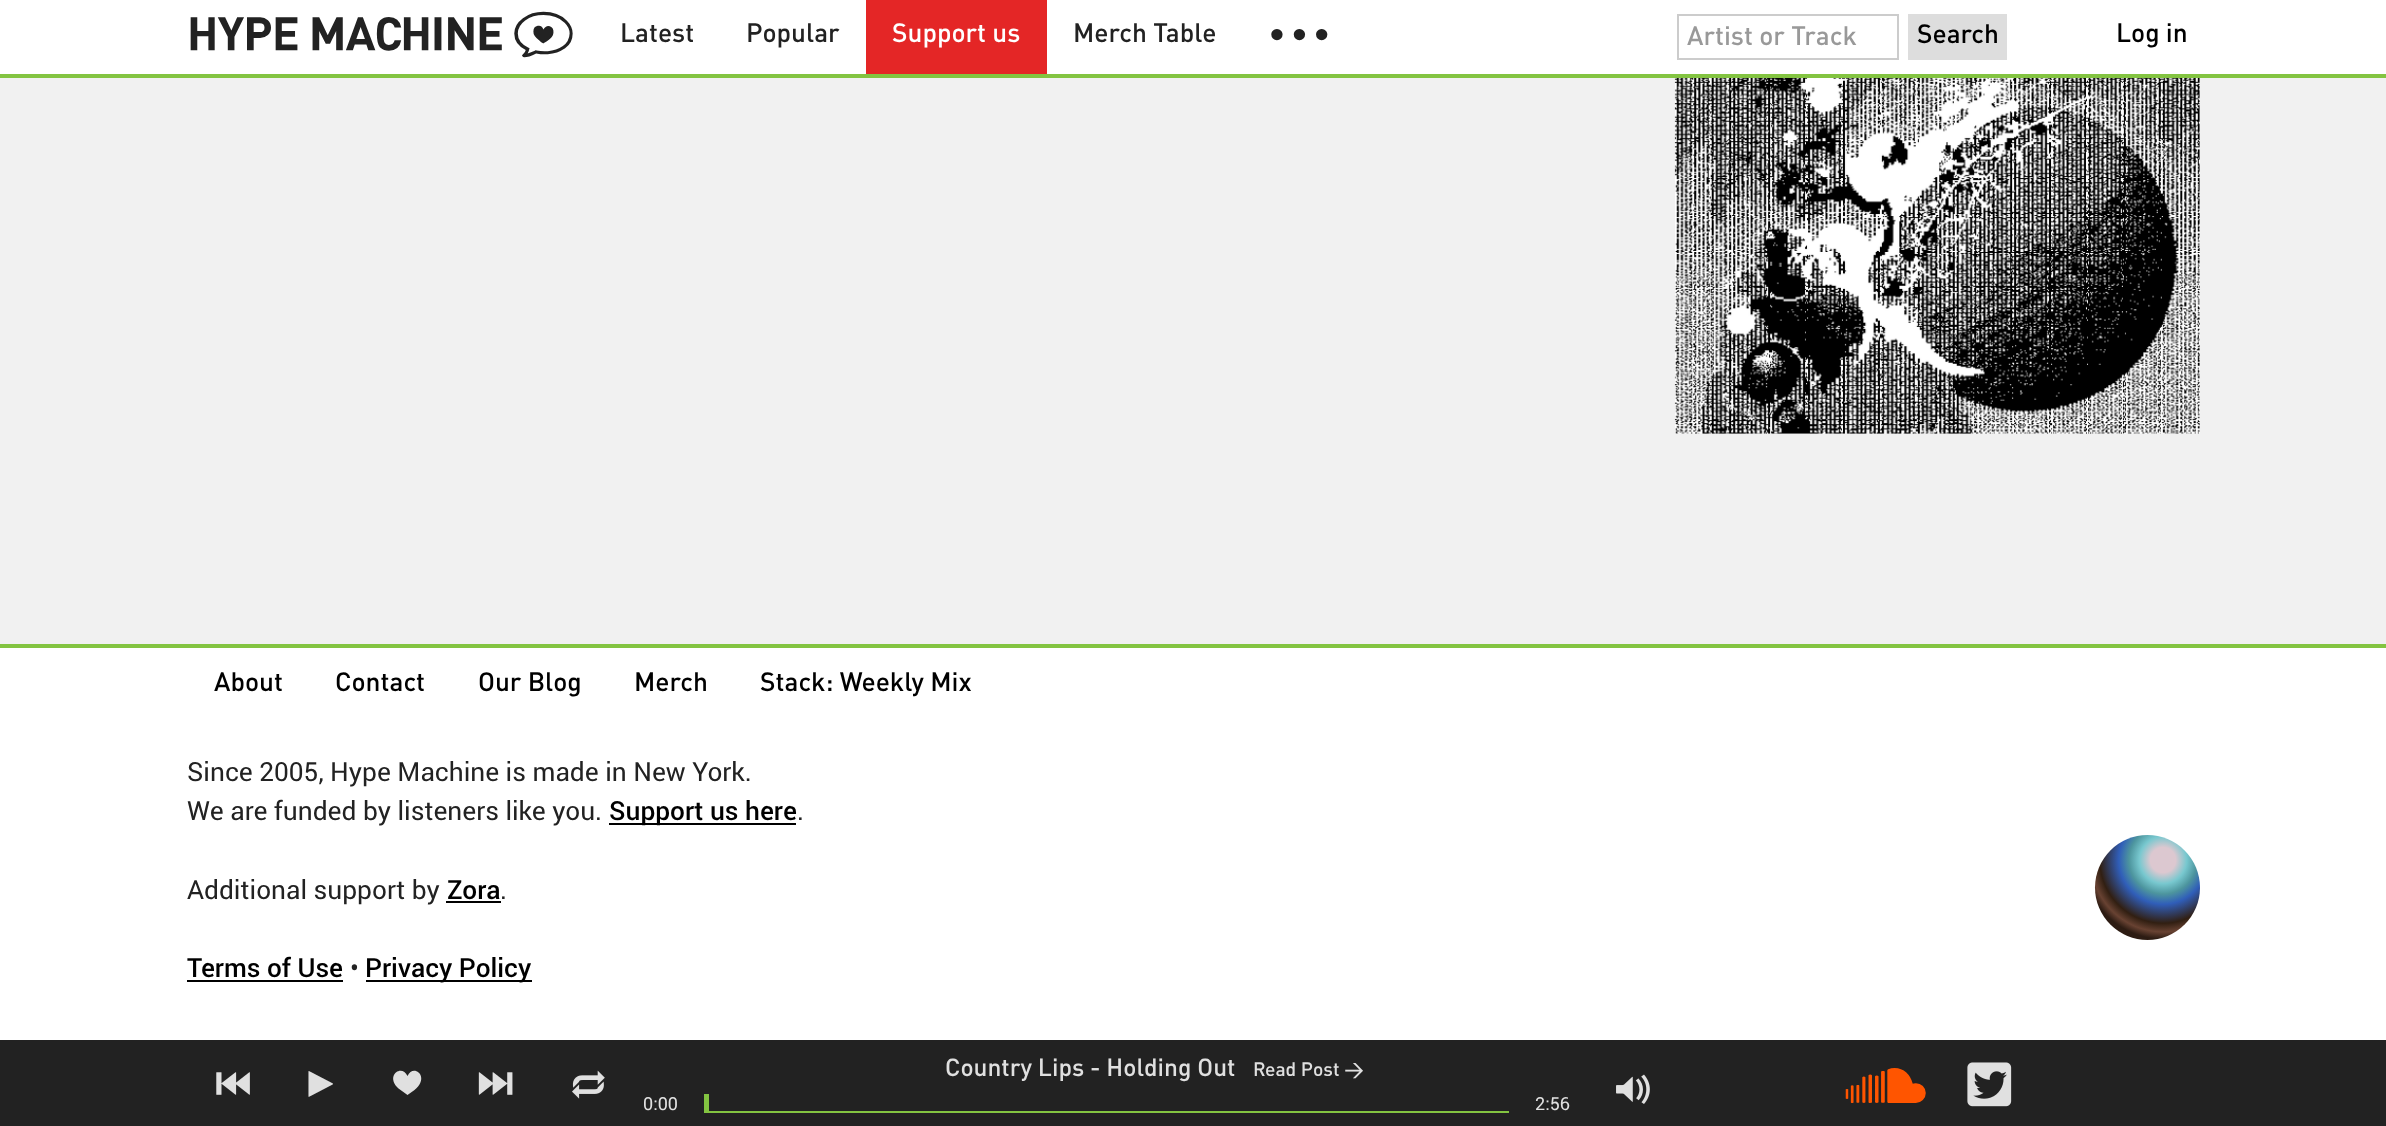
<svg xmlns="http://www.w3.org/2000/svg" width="2386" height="1126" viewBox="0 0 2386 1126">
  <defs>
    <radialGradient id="g1" gradientUnits="userSpaceOnUse" cx="2163" cy="860" r="79"><stop offset="0.16" stop-color="rgb(220,200,208)"/><stop offset="0.3" stop-color="rgb(120,200,207)"/><stop offset="0.43" stop-color="rgb(77,149,158)"/><stop offset="0.56" stop-color="rgb(48,94,185)"/><stop offset="0.8" stop-color="rgb(49,31,18)"/><stop offset="0.91" stop-color="rgb(104,66,50)"/><stop offset="1" stop-color="rgb(45,28,19)"/></radialGradient>
  </defs>
  <rect width="100%" height="100%" fill="rgb(241,241,241)"/>
  <rect x="0" y="0" width="2386" height="74" fill="rgb(255,255,255)"/>
  <rect x="0" y="74" width="2386" height="4" fill="rgb(131,196,65)"/>
  <text x="187" y="49" font-family="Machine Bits" font-size="66.5" fill="rgb(34,34,34)">1</text>
  <g font-family="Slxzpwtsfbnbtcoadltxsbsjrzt" font-size="26.25" font-weight="500" fill="rgb(34,34,34)">
    <text x="620" y="42">Latest</text>
    <text x="746" y="42">Popular</text>
  </g>
  <rect x="866" y="0" width="181" height="74" fill="rgb(228,38,38)"/>
  <text x="892" y="42" font-family="Slxzpwtsfbnbtcoadltxsbsjrzt" font-size="26.25" font-weight="500" fill="rgb(255,255,255)">Support us</text>
  <text x="1073" y="42" font-family="Slxzpwtsfbnbtcoadltxsbsjrzt" font-size="26.25" font-weight="500" fill="rgb(34,34,34)">Merch Table</text>
  <text x="1269" y="42" font-family="Liberation Serif" font-size="26.25" font-weight="bold" fill="rgb(34,34,34)">● ● ●</text>
  <rect x="1678" y="15" width="220" height="44" fill="none" stroke="rgb(204,204,204)" stroke-width="2"/>
  <text x="1687" y="45" font-family="Slxzpwtsfbnbtcoadltxsbsjrzt" font-size="26.25" font-weight="500" fill="rgb(153,153,153)">Artist or Track</text>
  <rect x="1908" y="14" width="99" height="46" fill="rgb(221,221,221)"/>
  <g font-family="Slxzpwtsfbnbtcoadltxsbsjrzt" font-size="26.25" font-weight="500" fill="rgb(0,0,0)">
    <text x="1917" y="43">Search</text>
    <text x="2116" y="42">Log in</text>
  </g>
  <image x="1674" y="78" width="526" height="356" href="pic1.png"/>
  <rect x="0" y="648" width="2386" height="392" fill="rgb(255,255,255)"/>
  <rect x="0" y="644" width="2386" height="4" fill="rgb(131,196,65)"/>
  <g font-family="Slxzpwtsfbnbtcoadltxsbsjrzt" font-size="26.25" font-weight="500" fill="rgb(0,0,0)">
    <text x="214" y="691">About</text>
    <text x="335" y="691">Contact</text>
    <text x="478" y="691">Our Blog</text>
    <text x="634" y="691">Merch</text>
    <text x="760" y="691">Stack: Weekly Mix</text>
  </g>
  <g font-family="Roboto" font-size="26.25" fill="rgb(34,34,34)">
    <text>
      <tspan x="187" y="781">Since 2005, Hype Machine is made in New York.</tspan>
      <tspan x="187" y="820">We are funded by listeners like you.</tspan>
    </text>
  </g>
  <rect x="609" y="823" width="187" height="2" fill="rgb(0,0,0)"/>
  <text x="609" y="820" font-family="Roboto" font-size="26.25" font-weight="500" fill="rgb(0,0,0)">Support us here</text>
  <g font-family="Roboto" font-size="26.25" fill="rgb(34,34,34)">
    <text x="797" y="820">.</text>
    <text x="187" y="899">Additional support by</text>
  </g>
  <text x="447" y="899" font-family="Roboto" font-size="26.25" font-weight="500" fill="rgb(0,0,0)">Zora</text>
  <rect x="446" y="901" width="55" height="2" fill="rgb(0,0,0)"/>
  <text x="500" y="899" font-family="Roboto" font-size="26.25" fill="rgb(34,34,34)">.</text>
  <circle cx="2147.5" cy="887.5" r="52.5" fill="url(#g1)"/>
  <text x="187" y="977" font-family="Roboto" font-size="26.25" font-weight="500" fill="rgb(0,0,0)">Terms of Use</text>
  <rect x="187" y="980" width="156" height="2" fill="rgb(0,0,0)"/>
  <text x="350" y="977" font-family="Roboto" font-size="26.25" fill="rgb(34,34,34)">•</text>
  <rect x="366" y="980" width="166" height="2" fill="rgb(0,0,0)"/>
  <text x="365" y="977" font-family="Roboto" font-size="26.25" font-weight="500" fill="rgb(0,0,0)">Privacy Policy</text>
  <rect x="0" y="1040" width="2386" height="86" fill="rgb(34,34,34)"/>
  <image x="216" y="1072" width="34" height="23" href="pic2.png"/>
  <image x="308" y="1071" width="25" height="26" href="pic3.png"/>
  <path d="M407.5 1076C413 1063 431 1076.5 414.5 1090L407.5 1095L398.5 1088.5C384.5 1075.5 402 1063.5 407.5 1076Z" fill="rgb(224,224,224)"/>
  <image x="478" y="1072" width="35" height="23" href="pic4.png"/>
  <image x="572" y="1070" width="33" height="29" href="pic5.png"/>
  <text x="945" y="1076" font-family="Slxzpwtsfbnbtcoadltxsbsjrzt" font-size="24.5" font-weight="500" fill="rgb(224,224,224)">Country Lips - Holding Out</text>
  <text x="1253" y="1076" font-family="Slxzpwtsfbnbtcoadltxsbsjrzt" font-size="19.25" font-weight="500" fill="rgb(224,224,224)">Read Post →</text>
  <text x="1844" y="1099" font-family="Machine Bits" font-size="35" fill="rgb(255,85,0)">9</text>
  <image x="1967" y="1062" width="45" height="45" href="pic6.png"/>
  <text x="643" y="1110" font-family="Roboto" font-size="18" fill="rgb(224,224,224)">0:00</text>
  <rect x="704" y="1111" width="805" height="2" fill="rgb(131,196,65)"/>
  <rect x="704" y="1094" width="5" height="17" fill="rgb(131,196,65)"/>
  <text x="1535" y="1110" font-family="Roboto" font-size="18" fill="rgb(224,224,224)">2:56</text>
  <image x="1616" y="1074" width="34" height="30" href="pic7.png"/>
</svg>
